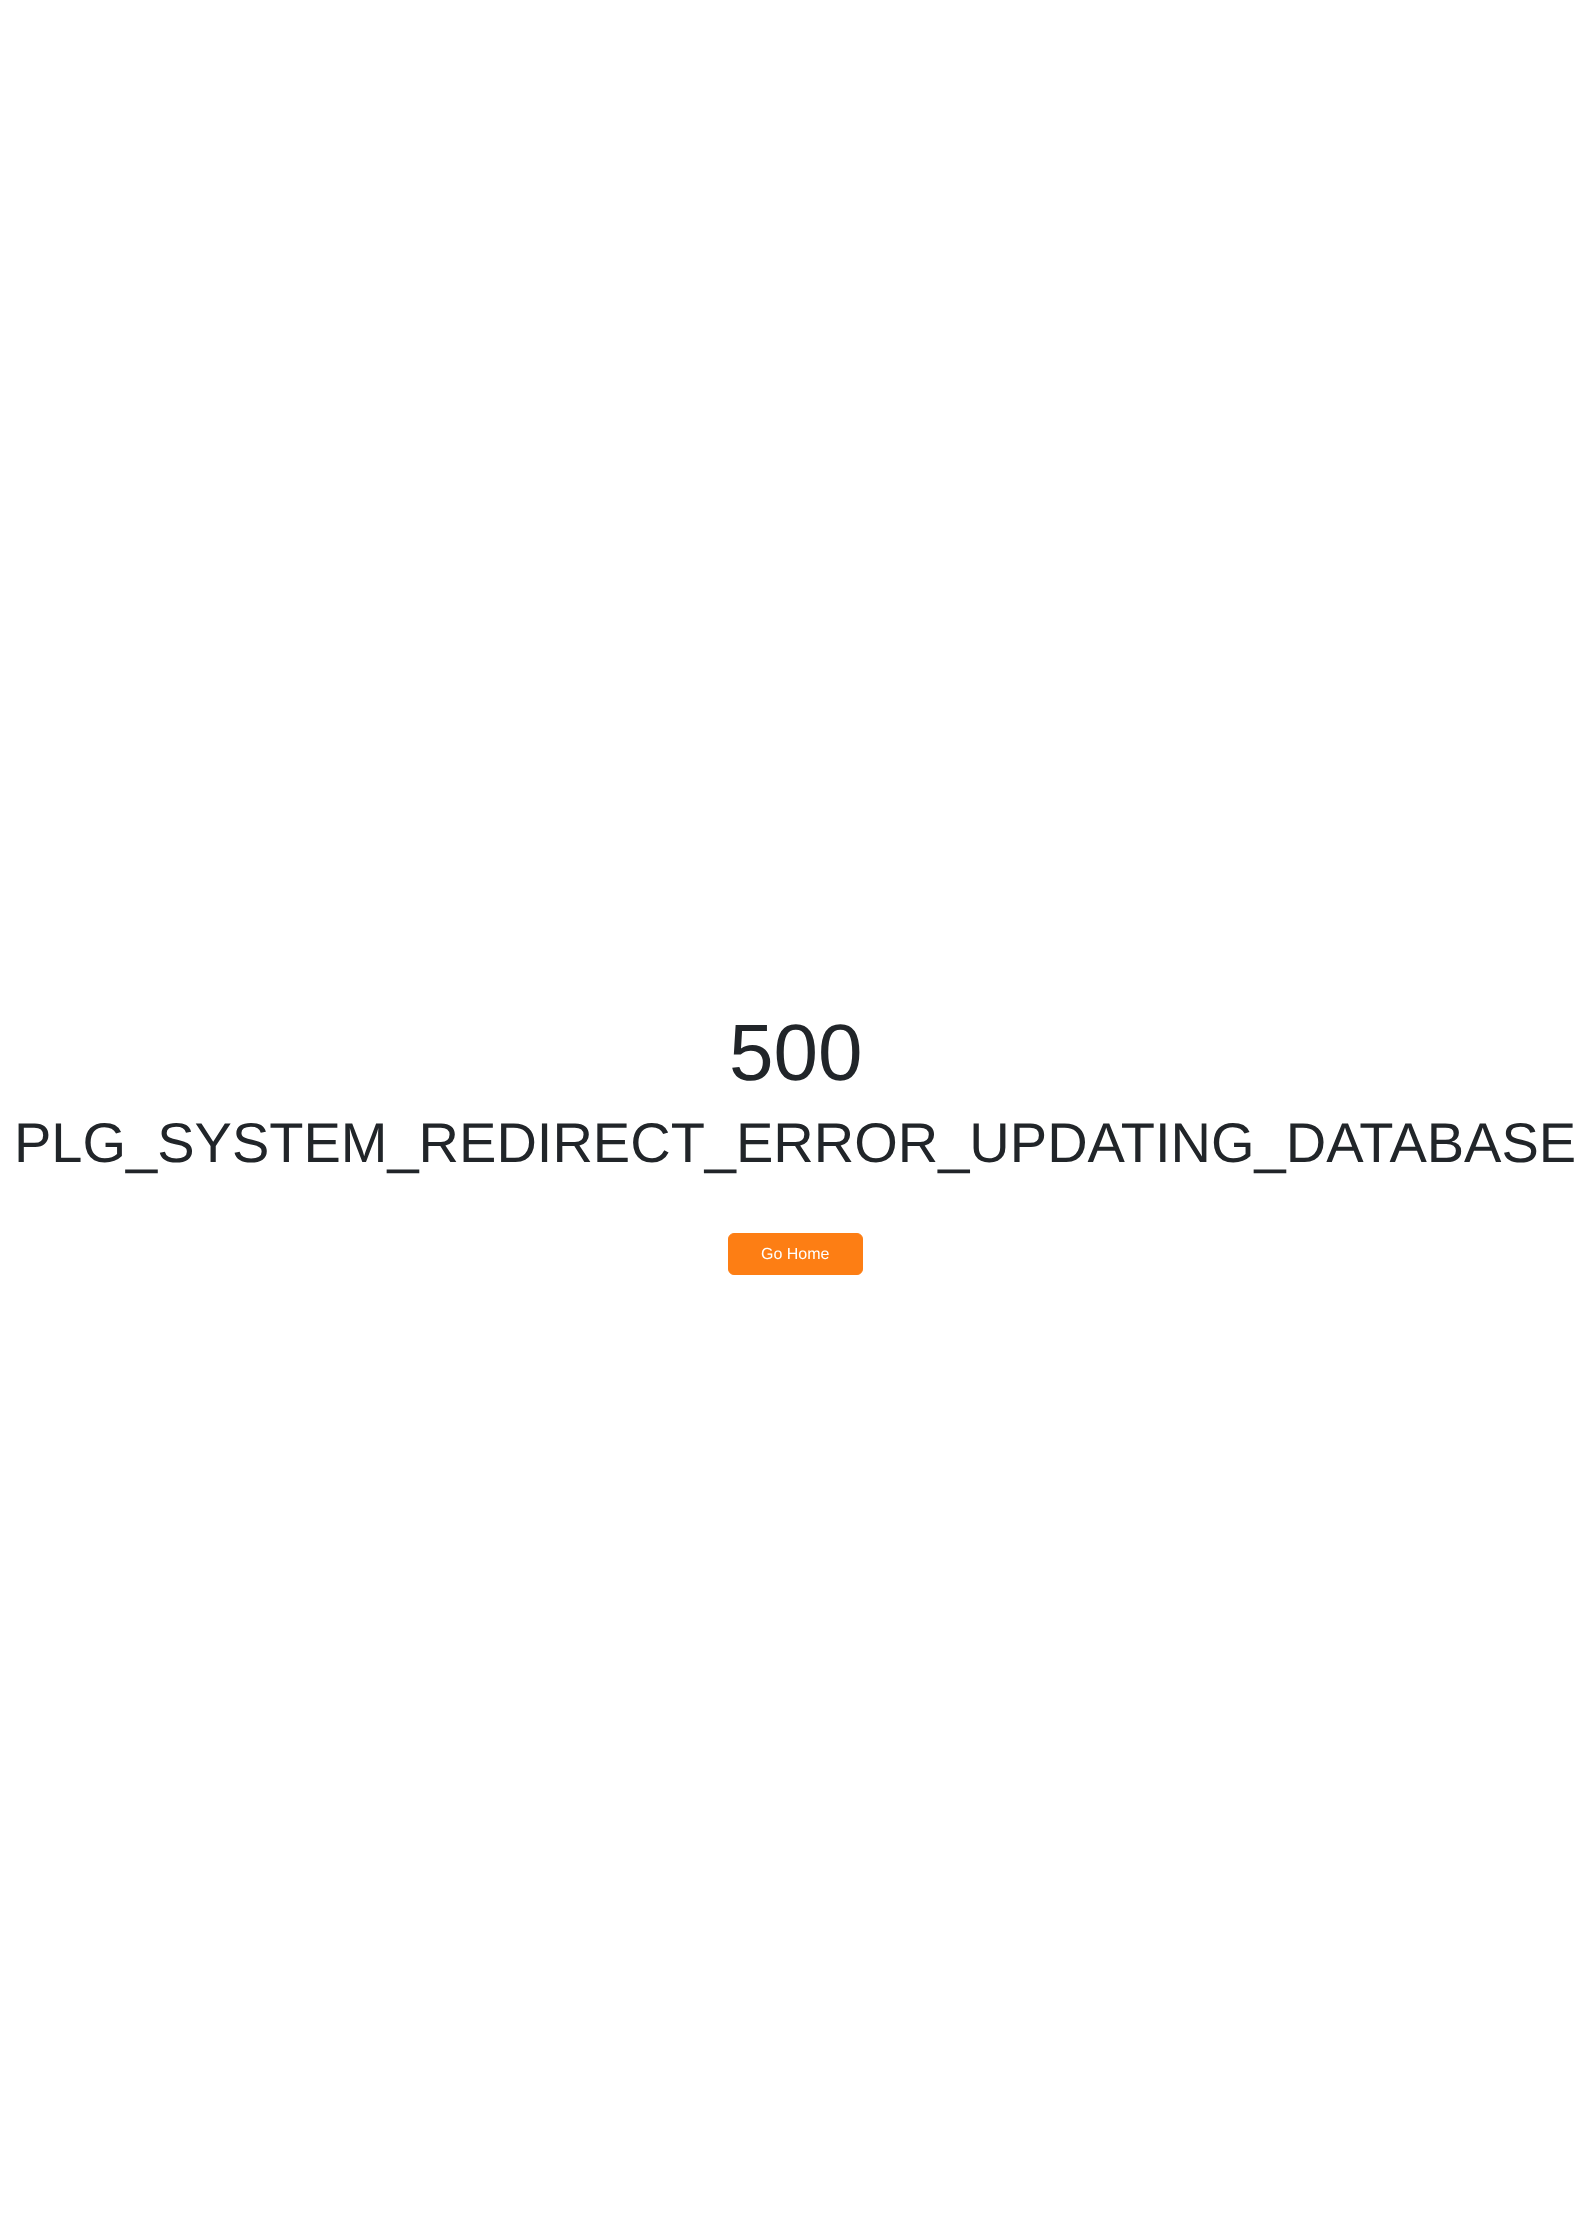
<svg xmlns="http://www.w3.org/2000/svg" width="1591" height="2232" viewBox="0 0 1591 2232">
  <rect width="100%" height="100%" fill="rgb(255,255,255)"/>
  <text x="729" y="1080" font-family="Liberation Sans" font-size="80" fill="rgb(33,37,41)">500</text>
  <text x="14" y="1162" font-family="Liberation Sans" font-size="56" fill="rgb(33,37,41)">PLG_SYSTEM_REDIRECT_ERROR_UPDATING_DATABASE</text>
  <rect x="728.5" y="1233.5" width="134" height="41" rx="5.5" fill="rgb(253,126,20)" stroke="rgb(253,126,20)"/>
  <text x="761" y="1259" font-family="Liberation Sans" font-size="16" fill="rgb(255,255,255)">Go Home</text>
</svg>
